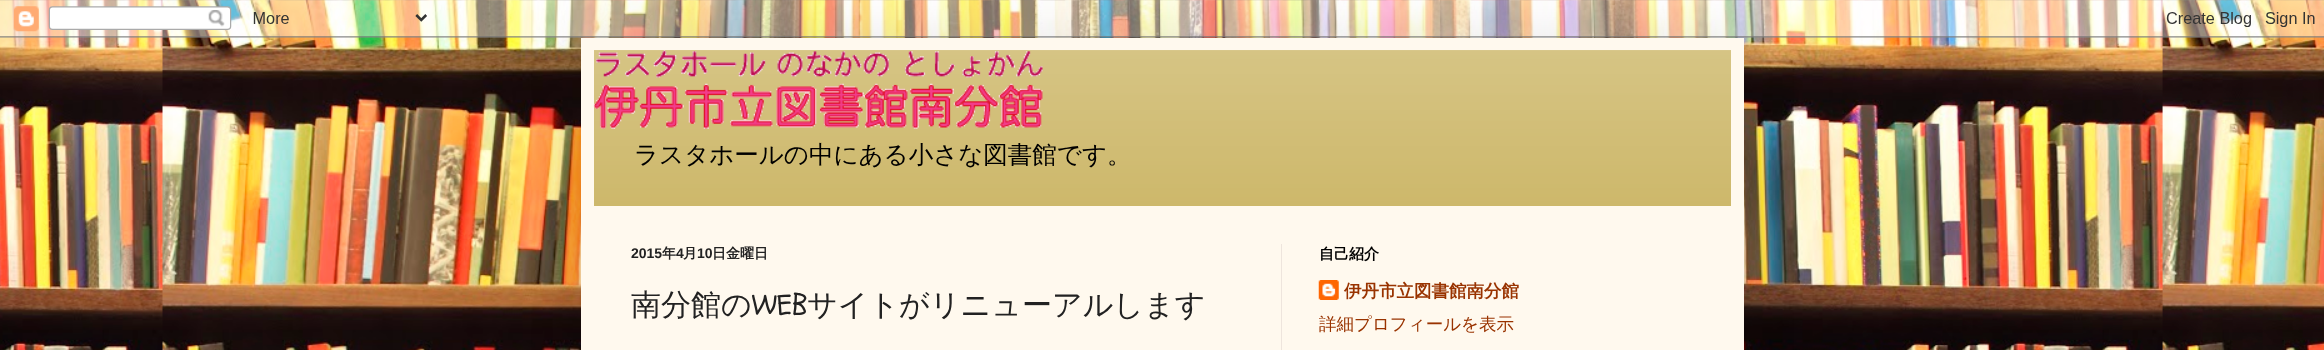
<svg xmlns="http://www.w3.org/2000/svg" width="2324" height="350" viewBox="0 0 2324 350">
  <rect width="100%" height="100%" fill="rgb(255,255,255)"/>
  <image x="0" y="0" width="2324" height="350" href="pic1.png"/>
  <rect x="581" y="38" width="1163" height="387" fill="rgba(0,0,0,0.15)" filter="blur(25px)"/>
  <image x="0" y="0" width="2324" height="38" href="pic2.png"/>
  <rect x="581" y="38" width="1163" height="312" fill="rgb(255,249,238)"/>
  <rect x="594" y="50" width="1137" height="156" fill="rgb(204,182,102)"/>
  <image x="594" y="50" width="1137" height="156" href="pic3.png"/>
  <image x="593" y="50" width="450" height="79" href="pic4.png"/>
  <text x="634" y="163" font-family="WenQuanYi Zen Hei" font-size="24.5" font-weight="500" fill="rgb(0,0,0)">ラスタホールの中にある小さな図書館です。</text>
  <rect x="1281" y="244" width="1" height="106" fill="rgb(238,229,221)"/>
  <text x="631" y="258" font-family="Liberation Sans" font-size="14" font-weight="bold" fill="rgb(34,34,34)">2015</text>
  <text x="662" y="258" font-family="WenQuanYi Zen Hei" font-size="14" font-weight="bold" fill="rgb(34,34,34)">年</text>
  <text x="676" y="258" font-family="Liberation Sans" font-size="14" font-weight="bold" fill="rgb(34,34,34)">4</text>
  <text x="683" y="258" font-family="WenQuanYi Zen Hei" font-size="14" font-weight="bold" fill="rgb(34,34,34)">月</text>
  <text x="697" y="258" font-family="Liberation Sans" font-size="14" font-weight="bold" fill="rgb(34,34,34)">10</text>
  <text x="712" y="258" font-family="WenQuanYi Zen Hei" font-size="14" font-weight="bold" fill="rgb(34,34,34)">日金曜日</text>
  <text x="631" y="315" font-family="WenQuanYi Zen Hei" font-size="30" font-weight="500" fill="rgb(34,34,34)">南分館の</text>
  <text x="752" y="315" font-family="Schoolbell" font-size="30" fill="rgb(34,34,34)">WEB</text>
  <text x="807" y="315" font-family="WenQuanYi Zen Hei" font-size="30" font-weight="500" fill="rgb(34,34,34)">サイトがリニューアルします</text>
  <text x="1319" y="259" font-family="WenQuanYi Zen Hei" font-size="15" font-weight="bold" fill="rgb(0,0,0)">自己紹介</text>
  <image x="1318" y="280" width="21" height="20" href="pic5.png"/>
  <text x="1344" y="297" font-family="WenQuanYi Zen Hei" font-size="17.5" font-weight="bold" fill="rgb(153,51,0)">伊丹市立図書館南分館</text>
  <text x="1319" y="330" font-family="WenQuanYi Zen Hei" font-size="17.5" font-weight="500" fill="rgb(153,51,0)">詳細プロフィールを表示</text>
</svg>
